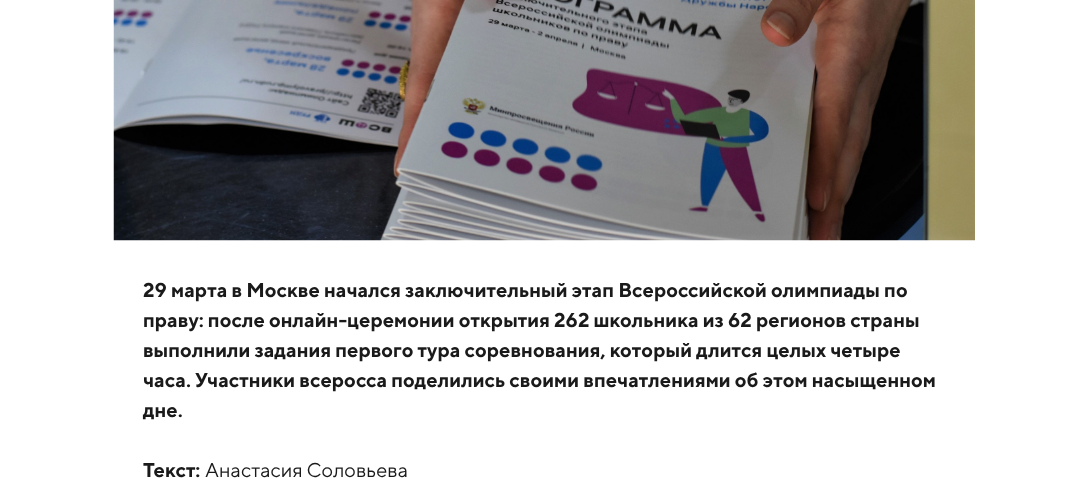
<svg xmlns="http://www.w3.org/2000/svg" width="1088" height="498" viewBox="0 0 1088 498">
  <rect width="100%" height="100%" fill="rgb(255,255,255)"/>
  <image x="113" y="0" width="862" height="241" href="pic1.png"/>
  <g font-family="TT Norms" font-size="20" font-weight="bold" fill="rgb(26,26,26)">
    <text>
      <tspan x="143" y="297">29 марта в Москве начался заключительный этап Всероссийской олимпиады по</tspan>
      <tspan x="143" y="327">праву: после онлайн-церемонии открытия 262 школьника из 62 регионов страны</tspan>
      <tspan x="143" y="357">выполнили задания первого тура соревнования, который длится целых четыре</tspan>
      <tspan x="143" y="387">часа. Участники всеросса поделились своими впечатлениями об этом насыщенном</tspan>
      <tspan x="143" y="417">дне.</tspan>
    </text>
    <text x="143" y="477">Текст:</text>
  </g>
  <text x="205" y="477" font-family="TT Norms" font-size="20" fill="rgb(26,26,26)">Анастасия Соловьева</text>
</svg>
